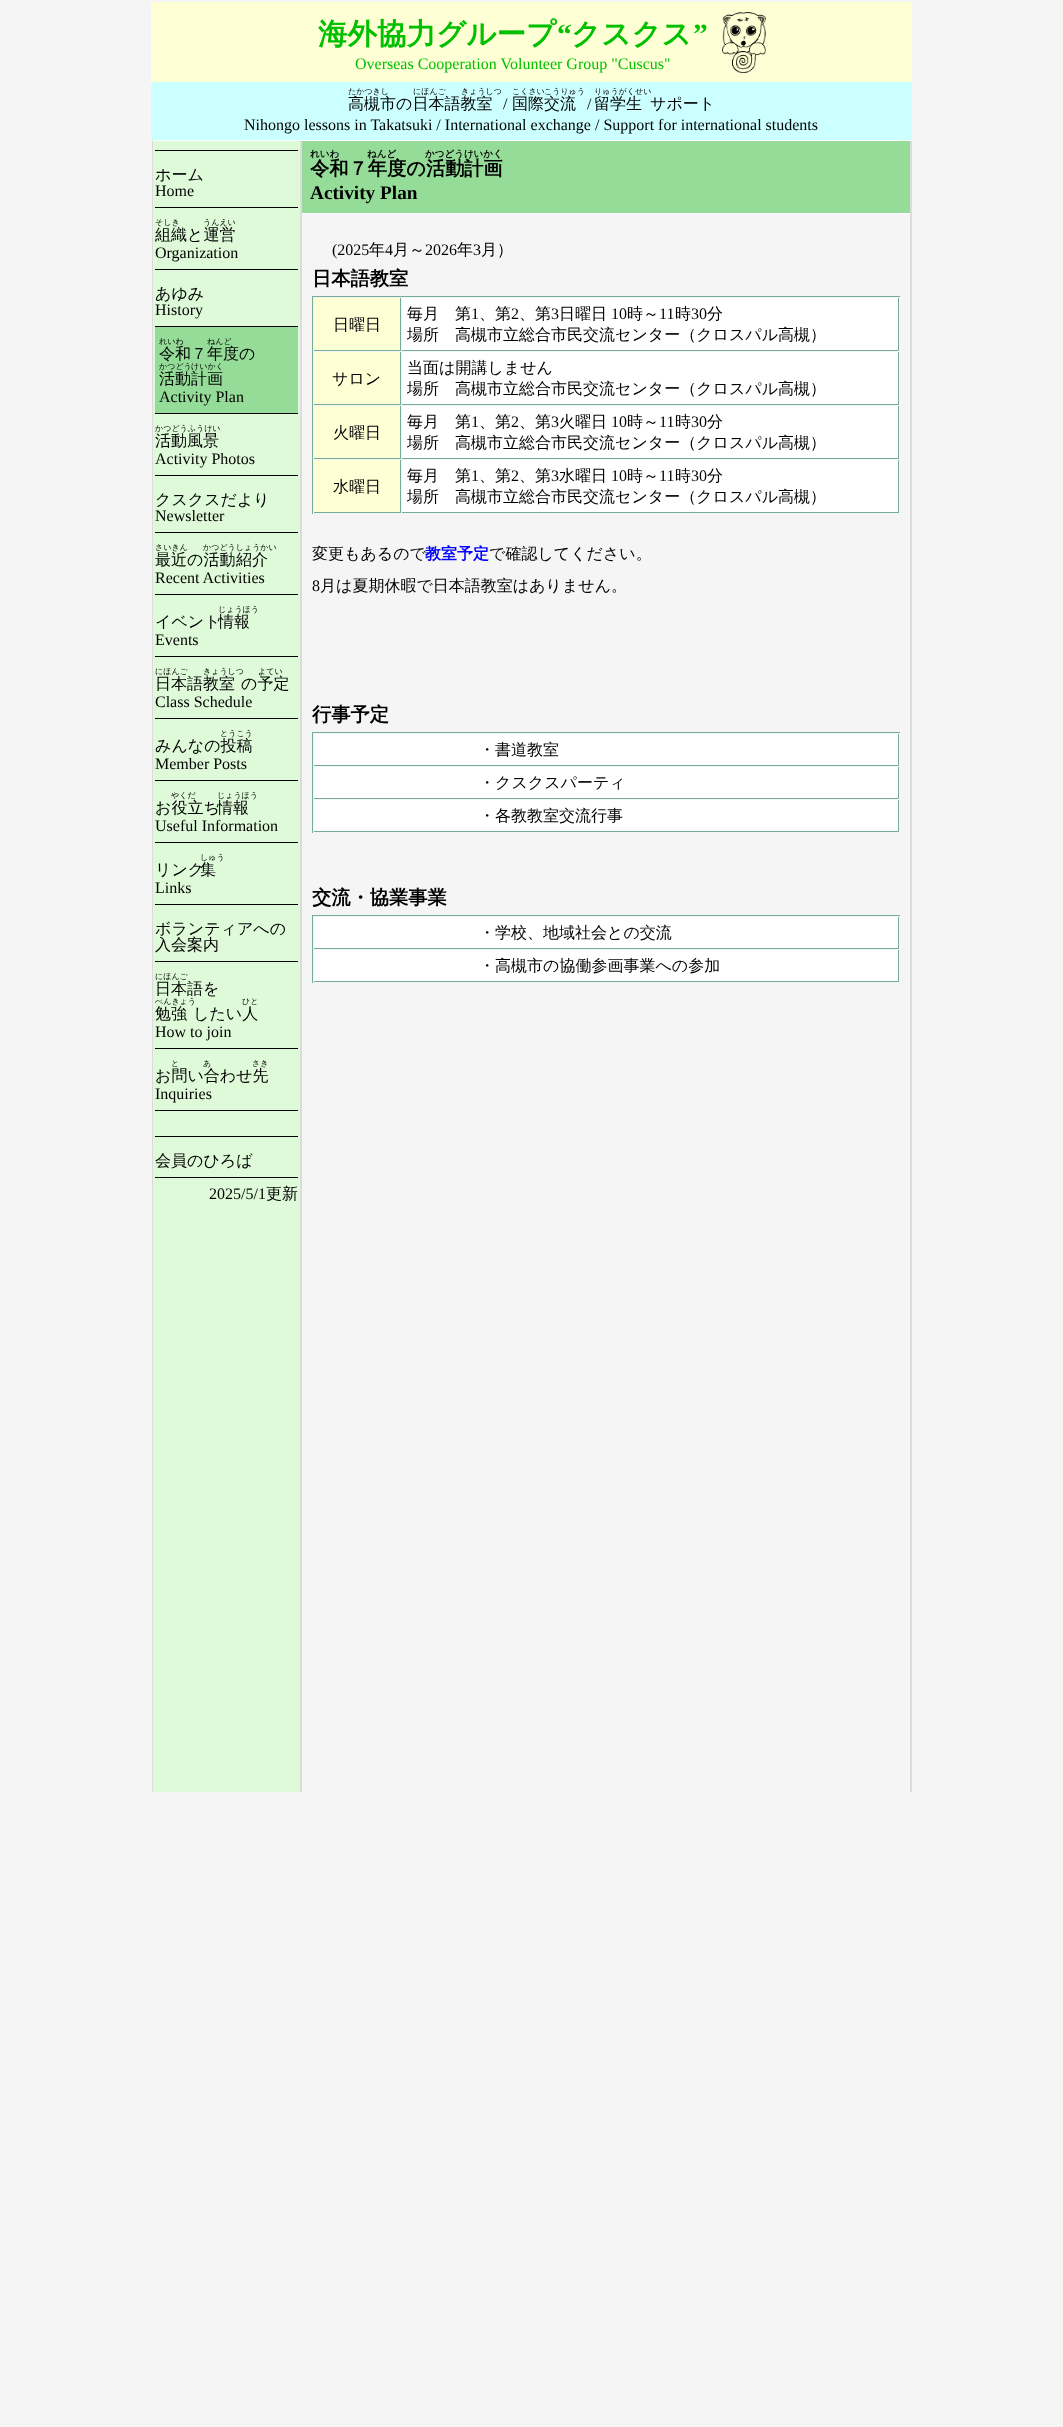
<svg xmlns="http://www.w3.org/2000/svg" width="1063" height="2427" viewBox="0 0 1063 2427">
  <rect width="100%" height="100%" fill="rgb(245,245,245)"/>
  <rect x="151" y="2" width="761" height="80" fill="rgb(255,255,214)"/>
  <text x="318" y="44" font-family="WenQuanYi Zen Hei" font-size="29.5" font-weight="bold" fill="rgb(0,192,0)">海外協力グループ</text>
  <text x="557" y="44" font-family="Liberation Serif" font-size="29.5" font-weight="bold" fill="rgb(0,192,0)">“</text>
  <text x="571" y="44" font-family="WenQuanYi Zen Hei" font-size="29.5" font-weight="bold" fill="rgb(0,192,0)">クスクス</text>
  <text x="693" y="44" font-family="Liberation Serif" font-size="29.5" font-weight="bold" fill="rgb(0,192,0)">”</text>
  <text x="355" y="69" font-family="Liberation Serif" font-size="16" fill="rgb(0,192,0)">Overseas Cooperation Volunteer Group "Cuscus"</text>
  <image x="722" y="12" width="44" height="61" href="pic1.png"/>
  <rect x="151" y="82" width="761" height="58" fill="rgb(204,255,255)"/>
  <g font-family="WenQuanYi Zen Hei" font-size="8" font-weight="500" fill="rgb(0,0,0)">
    <text x="461" y="94">きょうしつ</text>
    <text x="544" y="94">こうりゅう</text>
  </g>
  <text x="544" y="109" font-family="WenQuanYi Zen Hei" font-size="16" font-weight="500" fill="rgb(0,0,0)">交流</text>
  <text x="594" y="94" font-family="WenQuanYi Zen Hei" font-size="8" font-weight="500" fill="rgb(0,0,0)">りゅうがくせい</text>
  <text x="594" y="109" font-family="WenQuanYi Zen Hei" font-size="16" font-weight="500" fill="rgb(0,0,0)">留学生</text>
  <text x="348" y="94" font-family="WenQuanYi Zen Hei" font-size="8" font-weight="500" fill="rgb(0,0,0)">たかつきし</text>
  <text x="348" y="109" font-family="WenQuanYi Zen Hei" font-size="16" font-weight="500" fill="rgb(0,0,0)">高槻市の日本語教室</text>
  <text x="413" y="94" font-family="WenQuanYi Zen Hei" font-size="8" font-weight="500" fill="rgb(0,0,0)">にほんご</text>
  <text x="503" y="109" font-family="Liberation Serif" font-size="16" fill="rgb(0,0,0)">/</text>
  <text x="512" y="94" font-family="WenQuanYi Zen Hei" font-size="8" font-weight="500" fill="rgb(0,0,0)">こくさい</text>
  <text x="512" y="109" font-family="WenQuanYi Zen Hei" font-size="16" font-weight="500" fill="rgb(0,0,0)">国際</text>
  <text x="587" y="109" font-family="Liberation Serif" font-size="16" fill="rgb(0,0,0)">/</text>
  <text x="650" y="109" font-family="WenQuanYi Zen Hei" font-size="16" font-weight="500" fill="rgb(0,0,0)">サポート</text>
  <text x="244" y="130" font-family="Liberation Serif" font-size="16" fill="rgb(0,0,0)">Nihongo lessons in Takatsuki / International exchange / Support for international students</text>
  <rect x="153" y="141" width="147" height="1651" fill="rgb(222,250,216)"/>
  <rect x="152" y="140" width="760" height="1" fill="rgb(255,255,255)"/>
  <rect x="152" y="140" width="1" height="1652" fill="rgb(220,220,220)"/>
  <rect x="155" y="150" width="143" height="1" fill="rgb(0,0,0)"/>
  <rect x="155" y="207" width="143" height="1" fill="rgb(0,0,0)"/>
  <text x="155" y="180" font-family="WenQuanYi Zen Hei" font-size="16" font-weight="500" fill="rgb(0,0,0)">ホーム</text>
  <text x="155" y="196" font-family="Liberation Serif" font-size="16" fill="rgb(0,0,0)">Home</text>
  <rect x="155" y="269" width="143" height="1" fill="rgb(0,0,0)"/>
  <g font-family="WenQuanYi Zen Hei" font-size="8" font-weight="500" fill="rgb(0,0,0)">
    <text x="203" y="225">うんえい</text>
    <text x="155" y="225">そしき</text>
  </g>
  <text x="155" y="240" font-family="WenQuanYi Zen Hei" font-size="16" font-weight="500" fill="rgb(0,0,0)">組織と運営</text>
  <text x="155" y="258" font-family="Liberation Serif" font-size="16" fill="rgb(0,0,0)">Organization</text>
  <rect x="155" y="326" width="143" height="1" fill="rgb(0,0,0)"/>
  <text x="155" y="299" font-family="WenQuanYi Zen Hei" font-size="16" font-weight="500" fill="rgb(0,0,0)">あゆみ</text>
  <text x="155" y="315" font-family="Liberation Serif" font-size="16" fill="rgb(0,0,0)">History</text>
  <rect x="155" y="327" width="143" height="86" fill="rgb(148,220,151)"/>
  <rect x="155" y="413" width="143" height="1" fill="rgb(0,0,0)"/>
  <text x="159" y="344" font-family="WenQuanYi Zen Hei" font-size="8" font-weight="500" fill="rgb(0,0,0)">れいわ</text>
  <text x="159" y="359" font-family="WenQuanYi Zen Hei" font-size="16" font-weight="500" fill="rgb(0,0,0)">令和７年度の</text>
  <g font-family="WenQuanYi Zen Hei" font-size="8" font-weight="500" fill="rgb(0,0,0)">
    <text x="207" y="344">ねんど</text>
    <text x="159" y="369">かつどう</text>
  </g>
  <text x="159" y="384" font-family="WenQuanYi Zen Hei" font-size="16" font-weight="500" fill="rgb(0,0,0)">活動</text>
  <text x="191" y="369" font-family="WenQuanYi Zen Hei" font-size="8" font-weight="500" fill="rgb(0,0,0)">けいかく</text>
  <text x="191" y="384" font-family="WenQuanYi Zen Hei" font-size="16" font-weight="500" fill="rgb(0,0,0)">計画</text>
  <text x="159" y="402" font-family="Liberation Serif" font-size="16" fill="rgb(0,0,0)">Activity Plan</text>
  <rect x="155" y="475" width="143" height="1" fill="rgb(0,0,0)"/>
  <text x="155" y="431" font-family="WenQuanYi Zen Hei" font-size="8" font-weight="500" fill="rgb(0,0,0)">かつどうふうけい</text>
  <g font-family="WenQuanYi Zen Hei" font-size="16" font-weight="500" fill="rgb(0,0,0)">
    <text x="155" y="446">活動</text>
    <text x="187" y="446">風景</text>
  </g>
  <text x="155" y="464" font-family="Liberation Serif" font-size="16" fill="rgb(0,0,0)">Activity Photos</text>
  <rect x="155" y="532" width="143" height="1" fill="rgb(0,0,0)"/>
  <text x="155" y="505" font-family="WenQuanYi Zen Hei" font-size="16" font-weight="500" fill="rgb(0,0,0)">クスクスだより</text>
  <text x="155" y="521" font-family="Liberation Serif" font-size="16" fill="rgb(0,0,0)">Newsletter</text>
  <rect x="155" y="594" width="143" height="1" fill="rgb(0,0,0)"/>
  <text x="155" y="550" font-family="WenQuanYi Zen Hei" font-size="8" font-weight="500" fill="rgb(0,0,0)">さいきん</text>
  <text x="155" y="565" font-family="WenQuanYi Zen Hei" font-size="16" font-weight="500" fill="rgb(0,0,0)">最近</text>
  <text x="203" y="550" font-family="WenQuanYi Zen Hei" font-size="8" font-weight="500" fill="rgb(0,0,0)">かつどうしょうかい</text>
  <g font-family="WenQuanYi Zen Hei" font-size="16" font-weight="500" fill="rgb(0,0,0)">
    <text x="187" y="565">の活動</text>
    <text x="236" y="565">紹介</text>
  </g>
  <text x="155" y="583" font-family="Liberation Serif" font-size="16" fill="rgb(0,0,0)">Recent Activities</text>
  <rect x="155" y="656" width="143" height="1" fill="rgb(0,0,0)"/>
  <text x="155" y="627" font-family="WenQuanYi Zen Hei" font-size="16" font-weight="500" fill="rgb(0,0,0)">イベント</text>
  <text x="218" y="612" font-family="WenQuanYi Zen Hei" font-size="8" font-weight="500" fill="rgb(0,0,0)">じょうほう</text>
  <text x="218" y="627" font-family="WenQuanYi Zen Hei" font-size="16" font-weight="500" fill="rgb(0,0,0)">情報</text>
  <text x="155" y="645" font-family="Liberation Serif" font-size="16" fill="rgb(0,0,0)">Events</text>
  <rect x="155" y="718" width="143" height="1" fill="rgb(0,0,0)"/>
  <g font-family="WenQuanYi Zen Hei" font-size="8" font-weight="500" fill="rgb(0,0,0)">
    <text x="203" y="674">きょうしつ</text>
    <text x="155" y="674">にほんご</text>
  </g>
  <text x="155" y="689" font-family="WenQuanYi Zen Hei" font-size="16" font-weight="500" fill="rgb(0,0,0)">日本語教室</text>
  <text x="258" y="674" font-family="WenQuanYi Zen Hei" font-size="8" font-weight="500" fill="rgb(0,0,0)">よてい</text>
  <text x="241" y="689" font-family="WenQuanYi Zen Hei" font-size="16" font-weight="500" fill="rgb(0,0,0)">の予定</text>
  <text x="155" y="707" font-family="Liberation Serif" font-size="16" fill="rgb(0,0,0)">Class Schedule</text>
  <rect x="155" y="780" width="143" height="1" fill="rgb(0,0,0)"/>
  <text x="220" y="736" font-family="WenQuanYi Zen Hei" font-size="8" font-weight="500" fill="rgb(0,0,0)">とうこう</text>
  <text x="155" y="751" font-family="WenQuanYi Zen Hei" font-size="16" font-weight="500" fill="rgb(0,0,0)">みんなの投稿</text>
  <text x="155" y="769" font-family="Liberation Serif" font-size="16" fill="rgb(0,0,0)">Member Posts</text>
  <rect x="155" y="842" width="143" height="1" fill="rgb(0,0,0)"/>
  <g font-family="WenQuanYi Zen Hei" font-size="8" font-weight="500" fill="rgb(0,0,0)">
    <text x="171" y="798">やくだ</text>
    <text x="217" y="798">じょうほう</text>
  </g>
  <g font-family="WenQuanYi Zen Hei" font-size="16" font-weight="500" fill="rgb(0,0,0)">
    <text x="155" y="813">お役立ち</text>
    <text x="217" y="813">情報</text>
  </g>
  <text x="155" y="831" font-family="Liberation Serif" font-size="16" fill="rgb(0,0,0)">Useful Information</text>
  <rect x="155" y="904" width="143" height="1" fill="rgb(0,0,0)"/>
  <text x="155" y="875" font-family="WenQuanYi Zen Hei" font-size="16" font-weight="500" fill="rgb(0,0,0)">リンク</text>
  <text x="200" y="860" font-family="WenQuanYi Zen Hei" font-size="8" font-weight="500" fill="rgb(0,0,0)">しゅう</text>
  <text x="200" y="875" font-family="WenQuanYi Zen Hei" font-size="16" font-weight="500" fill="rgb(0,0,0)">集</text>
  <text x="155" y="893" font-family="Liberation Serif" font-size="16" fill="rgb(0,0,0)">Links</text>
  <rect x="155" y="961" width="143" height="1" fill="rgb(0,0,0)"/>
  <g font-family="WenQuanYi Zen Hei" font-size="16" font-weight="500" fill="rgb(0,0,0)">
    <text>
      <tspan x="155" y="934">ボランティアへの</tspan>
      <tspan x="155" y="950">入会案内</tspan>
    </text>
  </g>
  <rect x="155" y="1048" width="143" height="1" fill="rgb(0,0,0)"/>
  <text x="155" y="979" font-family="WenQuanYi Zen Hei" font-size="8" font-weight="500" fill="rgb(0,0,0)">にほんご</text>
  <text x="155" y="994" font-family="WenQuanYi Zen Hei" font-size="16" font-weight="500" fill="rgb(0,0,0)">日本語を</text>
  <text x="155" y="1004" font-family="WenQuanYi Zen Hei" font-size="8" font-weight="500" fill="rgb(0,0,0)">べんきょう</text>
  <text x="155" y="1019" font-family="WenQuanYi Zen Hei" font-size="16" font-weight="500" fill="rgb(0,0,0)">勉強</text>
  <text x="242" y="1004" font-family="WenQuanYi Zen Hei" font-size="8" font-weight="500" fill="rgb(0,0,0)">ひと</text>
  <text x="193" y="1019" font-family="WenQuanYi Zen Hei" font-size="16" font-weight="500" fill="rgb(0,0,0)">したい人</text>
  <text x="155" y="1037" font-family="Liberation Serif" font-size="16" fill="rgb(0,0,0)">How to join</text>
  <rect x="155" y="1110" width="143" height="1" fill="rgb(0,0,0)"/>
  <g font-family="WenQuanYi Zen Hei" font-size="8" font-weight="500" fill="rgb(0,0,0)">
    <text x="171" y="1066">と</text>
    <text x="203" y="1066">あ</text>
    <text x="252" y="1066">さき</text>
  </g>
  <text x="155" y="1081" font-family="WenQuanYi Zen Hei" font-size="16" font-weight="500" fill="rgb(0,0,0)">お問い合わせ先</text>
  <text x="155" y="1099" font-family="Liberation Serif" font-size="16" fill="rgb(0,0,0)">Inquiries</text>
  <rect x="155" y="1136" width="143" height="1" fill="rgb(0,0,0)"/>
  <rect x="155" y="1177" width="143" height="1" fill="rgb(0,0,0)"/>
  <text x="155" y="1166" font-family="WenQuanYi Zen Hei" font-size="16" font-weight="500" fill="rgb(0,0,0)">会員のひろば</text>
  <text x="209" y="1199" font-family="Liberation Serif" font-size="16" fill="rgb(0,0,0)">2025/5/1</text>
  <text x="266" y="1199" font-family="WenQuanYi Zen Hei" font-size="16" font-weight="500" fill="rgb(0,0,0)">更新</text>
  <rect x="911" y="141" width="1" height="1651" fill="rgb(220,220,220)"/>
  <rect x="300" y="141" width="1" height="1651" fill="rgb(220,220,220)"/>
  <rect x="910" y="141" width="1" height="1651" fill="rgb(220,220,220)"/>
  <rect x="301" y="141" width="1" height="1651" fill="rgb(220,220,220)"/>
  <rect x="302" y="141" width="608" height="72" fill="rgb(148,220,151)"/>
  <rect x="302" y="213" width="608" height="1" fill="rgb(255,255,255)"/>
  <text x="310" y="157" font-family="WenQuanYi Zen Hei" font-size="9.5" font-weight="bold" fill="rgb(0,0,0)">れいわ</text>
  <text x="310" y="175" font-family="WenQuanYi Zen Hei" font-size="19.25" font-weight="bold" fill="rgb(0,0,0)">令和７年度の活動</text>
  <g font-family="WenQuanYi Zen Hei" font-size="9.5" font-weight="bold" fill="rgb(0,0,0)">
    <text x="367" y="157">ねんど</text>
    <text x="425" y="157">かつどうけいかく</text>
  </g>
  <text x="464" y="175" font-family="WenQuanYi Zen Hei" font-size="19.25" font-weight="bold" fill="rgb(0,0,0)">計画</text>
  <text x="310" y="199" font-family="Liberation Serif" font-size="19.25" font-weight="bold" fill="rgb(0,0,0)">Activity Plan</text>
  <text x="332" y="255" font-family="Liberation Serif" font-size="16" fill="rgb(0,0,0)">(2025</text>
  <text x="369" y="255" font-family="WenQuanYi Zen Hei" font-size="16" font-weight="500" fill="rgb(0,0,0)">年</text>
  <text x="385" y="255" font-family="Liberation Serif" font-size="16" fill="rgb(0,0,0)">4</text>
  <text x="393" y="255" font-family="WenQuanYi Zen Hei" font-size="16" font-weight="500" fill="rgb(0,0,0)">月～</text>
  <text x="425" y="255" font-family="Liberation Serif" font-size="16" fill="rgb(0,0,0)">2026</text>
  <text x="457" y="255" font-family="WenQuanYi Zen Hei" font-size="16" font-weight="500" fill="rgb(0,0,0)">年</text>
  <text x="473" y="255" font-family="Liberation Serif" font-size="16" fill="rgb(0,0,0)">3</text>
  <text x="481" y="255" font-family="WenQuanYi Zen Hei" font-size="16" font-weight="500" fill="rgb(0,0,0)">月）</text>
  <text x="312" y="285" font-family="WenQuanYi Zen Hei" font-size="19.25" font-weight="bold" fill="rgb(0,0,0)">日本語教室</text>
  <rect x="312" y="296" width="588" height="1" fill="rgb(116,171,153)"/>
  <rect x="312" y="296" width="1" height="218" fill="rgb(116,171,153)"/>
  <rect x="314" y="298" width="86" height="52" fill="rgb(255,255,214)"/>
  <rect x="400" y="298" width="1" height="53" fill="rgb(116,171,153)"/>
  <rect x="314" y="350" width="87" height="1" fill="rgb(116,171,153)"/>
  <text x="333" y="330" font-family="WenQuanYi Zen Hei" font-size="16" font-weight="500" fill="rgb(0,0,0)">日曜日</text>
  <rect x="402" y="298" width="496" height="52" fill="rgb(255,255,255)"/>
  <rect x="898" y="298" width="1" height="53" fill="rgb(116,171,153)"/>
  <rect x="402" y="350" width="497" height="1" fill="rgb(116,171,153)"/>
  <text x="407" y="319" font-family="WenQuanYi Zen Hei" font-size="16" font-weight="500" fill="rgb(0,0,0)">毎月　第</text>
  <text x="471" y="319" font-family="Liberation Serif" font-size="16" fill="rgb(0,0,0)">1</text>
  <text x="479" y="319" font-family="WenQuanYi Zen Hei" font-size="16" font-weight="500" fill="rgb(0,0,0)">、第</text>
  <text x="511" y="319" font-family="Liberation Serif" font-size="16" fill="rgb(0,0,0)">2</text>
  <text x="519" y="319" font-family="WenQuanYi Zen Hei" font-size="16" font-weight="500" fill="rgb(0,0,0)">、第</text>
  <text x="551" y="319" font-family="Liberation Serif" font-size="16" fill="rgb(0,0,0)">3</text>
  <text x="559" y="319" font-family="WenQuanYi Zen Hei" font-size="16" font-weight="500" fill="rgb(0,0,0)">日曜日</text>
  <text x="611" y="319" font-family="Liberation Serif" font-size="16" fill="rgb(0,0,0)">10</text>
  <text x="627" y="319" font-family="WenQuanYi Zen Hei" font-size="16" font-weight="500" fill="rgb(0,0,0)">時～</text>
  <text x="659" y="319" font-family="Liberation Serif" font-size="16" fill="rgb(0,0,0)">11</text>
  <text x="675" y="319" font-family="WenQuanYi Zen Hei" font-size="16" font-weight="500" fill="rgb(0,0,0)">時</text>
  <text x="691" y="319" font-family="Liberation Serif" font-size="16" fill="rgb(0,0,0)">30</text>
  <g font-family="WenQuanYi Zen Hei" font-size="16" font-weight="500" fill="rgb(0,0,0)">
    <text x="707" y="319">分</text>
    <text x="407" y="340">場所　高槻市立総合市民交流センター（クロスパル高槻）</text>
  </g>
  <rect x="314" y="352" width="86" height="52" fill="rgb(255,255,214)"/>
  <rect x="400" y="352" width="1" height="53" fill="rgb(116,171,153)"/>
  <rect x="314" y="404" width="87" height="1" fill="rgb(116,171,153)"/>
  <text x="332" y="384" font-family="WenQuanYi Zen Hei" font-size="16" font-weight="500" fill="rgb(0,0,0)">サロン</text>
  <rect x="402" y="352" width="496" height="52" fill="rgb(255,255,255)"/>
  <rect x="898" y="352" width="1" height="53" fill="rgb(116,171,153)"/>
  <rect x="402" y="404" width="497" height="1" fill="rgb(116,171,153)"/>
  <g font-family="WenQuanYi Zen Hei" font-size="16" font-weight="500" fill="rgb(0,0,0)">
    <text>
      <tspan x="407" y="373">当面は開講しません</tspan>
      <tspan x="407" y="394">場所　高槻市立総合市民交流センター（クロスパル高槻）</tspan>
    </text>
  </g>
  <rect x="314" y="406" width="86" height="52" fill="rgb(255,255,214)"/>
  <rect x="400" y="406" width="1" height="53" fill="rgb(116,171,153)"/>
  <rect x="314" y="458" width="87" height="1" fill="rgb(116,171,153)"/>
  <text x="333" y="438" font-family="WenQuanYi Zen Hei" font-size="16" font-weight="500" fill="rgb(0,0,0)">火曜日</text>
  <rect x="402" y="406" width="496" height="52" fill="rgb(255,255,255)"/>
  <rect x="898" y="406" width="1" height="53" fill="rgb(116,171,153)"/>
  <rect x="402" y="458" width="497" height="1" fill="rgb(116,171,153)"/>
  <text x="407" y="427" font-family="WenQuanYi Zen Hei" font-size="16" font-weight="500" fill="rgb(0,0,0)">毎月　第</text>
  <text x="471" y="427" font-family="Liberation Serif" font-size="16" fill="rgb(0,0,0)">1</text>
  <text x="479" y="427" font-family="WenQuanYi Zen Hei" font-size="16" font-weight="500" fill="rgb(0,0,0)">、第</text>
  <text x="511" y="427" font-family="Liberation Serif" font-size="16" fill="rgb(0,0,0)">2</text>
  <text x="519" y="427" font-family="WenQuanYi Zen Hei" font-size="16" font-weight="500" fill="rgb(0,0,0)">、第</text>
  <text x="551" y="427" font-family="Liberation Serif" font-size="16" fill="rgb(0,0,0)">3</text>
  <text x="559" y="427" font-family="WenQuanYi Zen Hei" font-size="16" font-weight="500" fill="rgb(0,0,0)">火曜日</text>
  <text x="611" y="427" font-family="Liberation Serif" font-size="16" fill="rgb(0,0,0)">10</text>
  <text x="627" y="427" font-family="WenQuanYi Zen Hei" font-size="16" font-weight="500" fill="rgb(0,0,0)">時～</text>
  <text x="659" y="427" font-family="Liberation Serif" font-size="16" fill="rgb(0,0,0)">11</text>
  <text x="675" y="427" font-family="WenQuanYi Zen Hei" font-size="16" font-weight="500" fill="rgb(0,0,0)">時</text>
  <text x="691" y="427" font-family="Liberation Serif" font-size="16" fill="rgb(0,0,0)">30</text>
  <g font-family="WenQuanYi Zen Hei" font-size="16" font-weight="500" fill="rgb(0,0,0)">
    <text x="707" y="427">分</text>
    <text x="407" y="448">場所　高槻市立総合市民交流センター（クロスパル高槻）</text>
  </g>
  <rect x="314" y="460" width="86" height="52" fill="rgb(255,255,214)"/>
  <rect x="400" y="460" width="1" height="53" fill="rgb(116,171,153)"/>
  <rect x="314" y="512" width="87" height="1" fill="rgb(116,171,153)"/>
  <text x="333" y="492" font-family="WenQuanYi Zen Hei" font-size="16" font-weight="500" fill="rgb(0,0,0)">水曜日</text>
  <rect x="402" y="460" width="496" height="52" fill="rgb(255,255,255)"/>
  <rect x="898" y="460" width="1" height="53" fill="rgb(116,171,153)"/>
  <rect x="402" y="512" width="497" height="1" fill="rgb(116,171,153)"/>
  <text x="407" y="481" font-family="WenQuanYi Zen Hei" font-size="16" font-weight="500" fill="rgb(0,0,0)">毎月　第</text>
  <text x="471" y="481" font-family="Liberation Serif" font-size="16" fill="rgb(0,0,0)">1</text>
  <text x="479" y="481" font-family="WenQuanYi Zen Hei" font-size="16" font-weight="500" fill="rgb(0,0,0)">、第</text>
  <text x="511" y="481" font-family="Liberation Serif" font-size="16" fill="rgb(0,0,0)">2</text>
  <text x="519" y="481" font-family="WenQuanYi Zen Hei" font-size="16" font-weight="500" fill="rgb(0,0,0)">、第</text>
  <text x="551" y="481" font-family="Liberation Serif" font-size="16" fill="rgb(0,0,0)">3</text>
  <text x="559" y="481" font-family="WenQuanYi Zen Hei" font-size="16" font-weight="500" fill="rgb(0,0,0)">水曜日</text>
  <text x="611" y="481" font-family="Liberation Serif" font-size="16" fill="rgb(0,0,0)">10</text>
  <text x="627" y="481" font-family="WenQuanYi Zen Hei" font-size="16" font-weight="500" fill="rgb(0,0,0)">時～</text>
  <text x="659" y="481" font-family="Liberation Serif" font-size="16" fill="rgb(0,0,0)">11</text>
  <text x="675" y="481" font-family="WenQuanYi Zen Hei" font-size="16" font-weight="500" fill="rgb(0,0,0)">時</text>
  <text x="691" y="481" font-family="Liberation Serif" font-size="16" fill="rgb(0,0,0)">30</text>
  <g font-family="WenQuanYi Zen Hei" font-size="16" font-weight="500" fill="rgb(0,0,0)">
    <text x="707" y="481">分</text>
    <text x="407" y="502">場所　高槻市立総合市民交流センター（クロスパル高槻）</text>
    <text x="312" y="559">変更もあるので</text>
  </g>
  <text x="425" y="559" font-family="WenQuanYi Zen Hei" font-size="16" font-weight="bold" fill="rgb(0,0,255)">教室予定</text>
  <text x="489" y="559" font-family="WenQuanYi Zen Hei" font-size="16" font-weight="500" fill="rgb(0,0,0)">で確認してください。</text>
  <text x="312" y="591" font-family="Liberation Serif" font-size="16" fill="rgb(0,0,0)">8</text>
  <text x="320" y="591" font-family="WenQuanYi Zen Hei" font-size="16" font-weight="500" fill="rgb(0,0,0)">月は夏期休暇で日本語教室はありません。</text>
  <text x="312" y="721" font-family="WenQuanYi Zen Hei" font-size="19.25" font-weight="bold" fill="rgb(0,0,0)">行事予定</text>
  <rect x="312" y="732" width="588" height="1" fill="rgb(116,171,153)"/>
  <rect x="312" y="732" width="1" height="101" fill="rgb(116,171,153)"/>
  <rect x="314" y="734" width="584" height="31" fill="rgb(255,255,255)"/>
  <rect x="898" y="734" width="1" height="32" fill="rgb(116,171,153)"/>
  <rect x="314" y="765" width="585" height="1" fill="rgb(116,171,153)"/>
  <text x="479" y="755" font-family="WenQuanYi Zen Hei" font-size="16" font-weight="500" fill="rgb(0,0,0)">・書道教室</text>
  <rect x="314" y="767" width="584" height="31" fill="rgb(255,255,255)"/>
  <rect x="898" y="767" width="1" height="32" fill="rgb(116,171,153)"/>
  <rect x="314" y="798" width="585" height="1" fill="rgb(116,171,153)"/>
  <text x="479" y="788" font-family="WenQuanYi Zen Hei" font-size="16" font-weight="500" fill="rgb(0,0,0)">・クスクスパーティ</text>
  <rect x="314" y="800" width="584" height="31" fill="rgb(255,255,255)"/>
  <rect x="898" y="800" width="1" height="32" fill="rgb(116,171,153)"/>
  <rect x="314" y="831" width="585" height="1" fill="rgb(116,171,153)"/>
  <text x="479" y="821" font-family="WenQuanYi Zen Hei" font-size="16" font-weight="500" fill="rgb(0,0,0)">・各教教室交流行事</text>
  <text x="312" y="904" font-family="WenQuanYi Zen Hei" font-size="19.25" font-weight="bold" fill="rgb(0,0,0)">交流・協業事業</text>
  <rect x="312" y="915" width="588" height="1" fill="rgb(116,171,153)"/>
  <rect x="312" y="915" width="1" height="68" fill="rgb(116,171,153)"/>
  <rect x="314" y="917" width="584" height="31" fill="rgb(255,255,255)"/>
  <rect x="898" y="917" width="1" height="32" fill="rgb(116,171,153)"/>
  <rect x="314" y="948" width="585" height="1" fill="rgb(116,171,153)"/>
  <text x="479" y="938" font-family="WenQuanYi Zen Hei" font-size="16" font-weight="500" fill="rgb(0,0,0)">・学校、地域社会との交流</text>
  <rect x="314" y="950" width="584" height="31" fill="rgb(255,255,255)"/>
  <rect x="898" y="950" width="1" height="32" fill="rgb(116,171,153)"/>
  <rect x="314" y="981" width="585" height="1" fill="rgb(116,171,153)"/>
  <text x="479" y="971" font-family="WenQuanYi Zen Hei" font-size="16" font-weight="500" fill="rgb(0,0,0)">・高槻市の協働参画事業への参加</text>
</svg>
